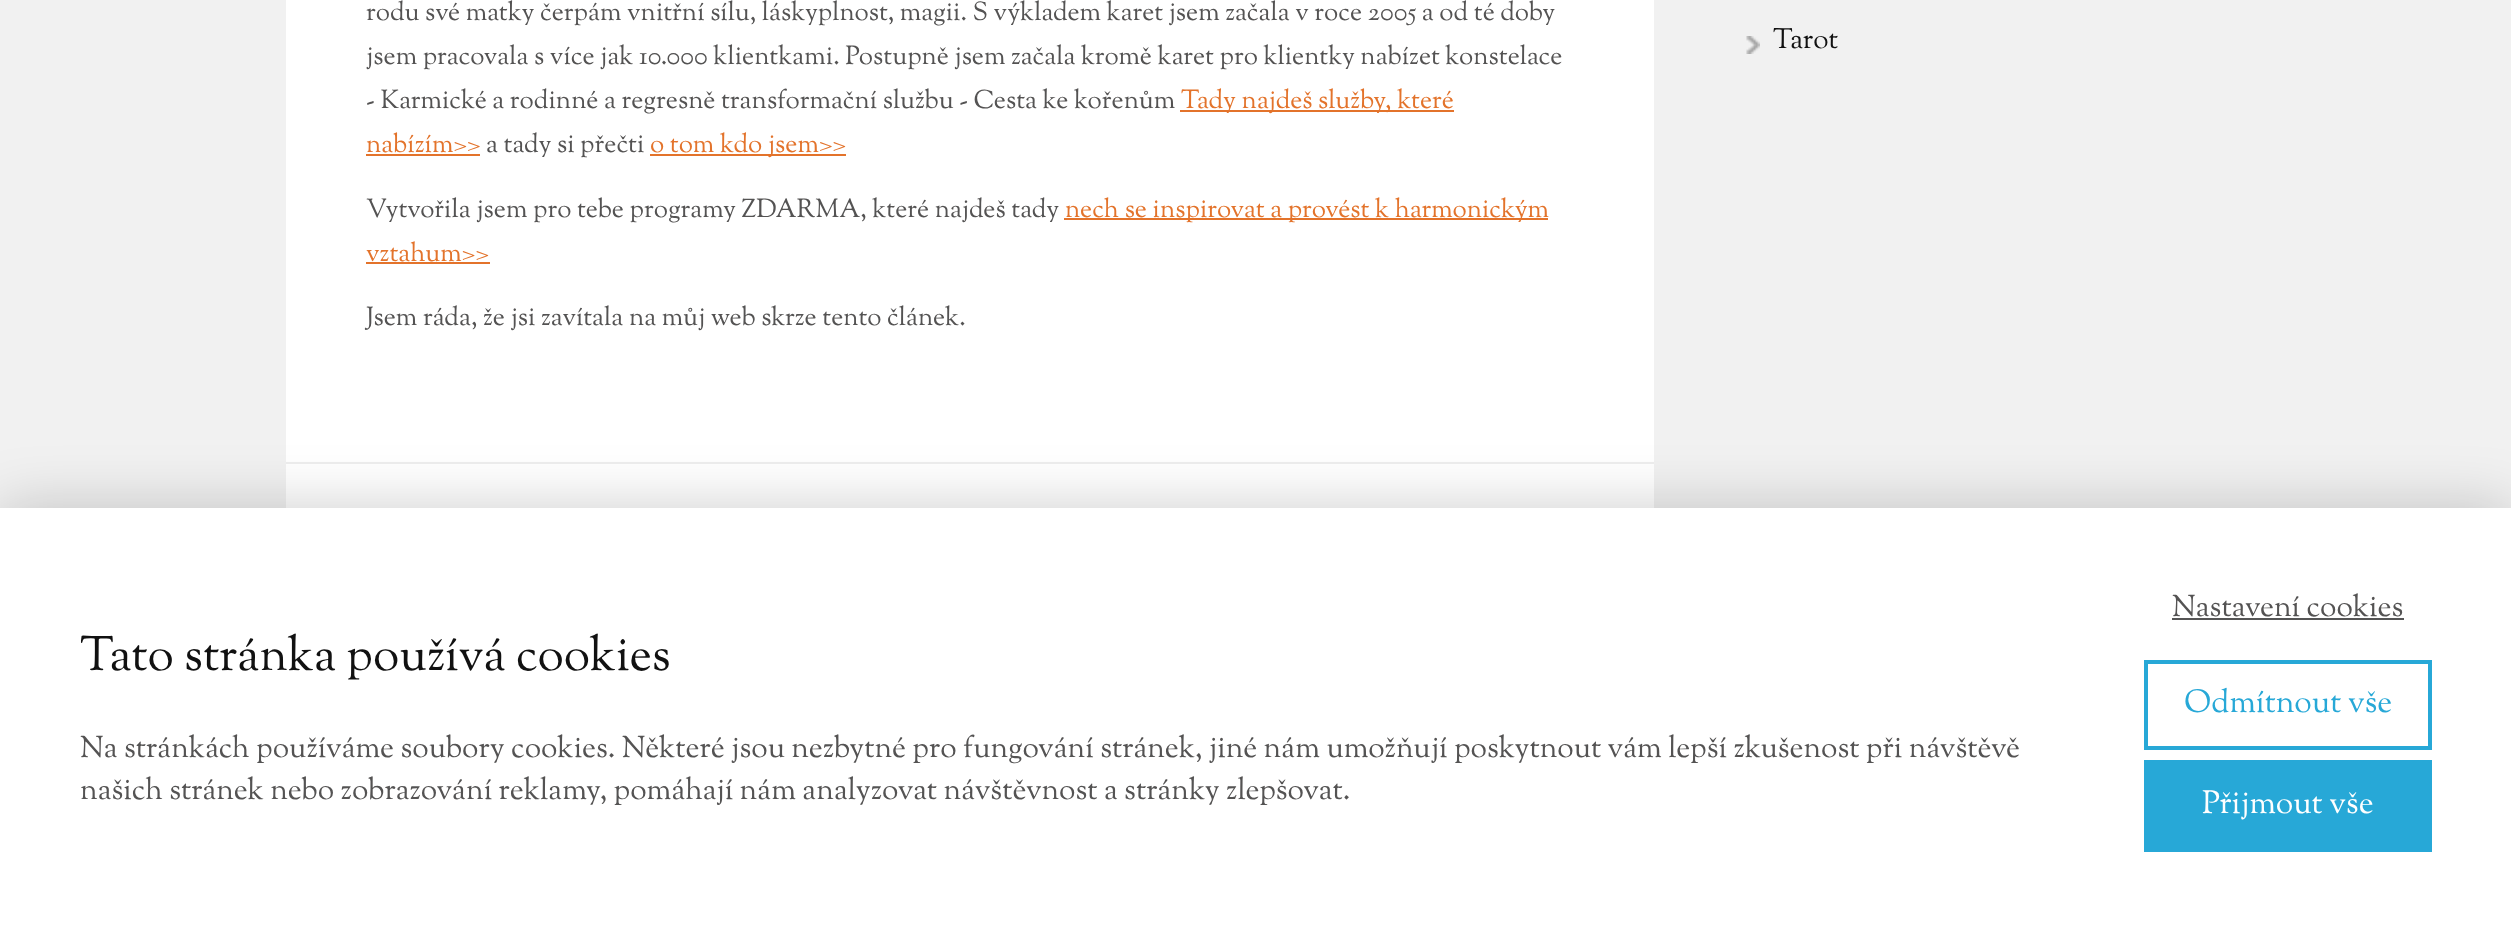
<svg xmlns="http://www.w3.org/2000/svg" width="2511" height="931" viewBox="0 0 2511 931">
  <rect width="100%" height="100%" fill="rgb(241,241,241)"/>
  <rect x="286" y="0" width="1368" height="508" fill="rgb(255,255,255)"/>
  <g font-family="Sorts Mill Goudy" font-size="26" fill="rgb(84,83,83)">
    <text>
      <tspan x="366" y="20">rodu své matky čerpám vnitřní sílu, láskyplnost, magii. S výkladem karet jsem začala v roce 2005 a od té doby</tspan>
      <tspan x="366" y="64">jsem pracovala s více jak 10.000 klientkami. Postupně jsem začala kromě karet pro klientky nabízet konstelace</tspan>
      <tspan x="366" y="108">- Karmické a rodinné a regresně transformační službu - Cesta ke kořenům</tspan>
    </text>
  </g>
  <rect x="1180" y="110" width="274" height="2" fill="rgb(227,115,43)"/>
  <g font-family="Sorts Mill Goudy" font-size="26" fill="rgb(227,115,43)">
    <text x="1181" y="108">Tady najdeš služby, které</text>
    <text x="366" y="152">nabízím&gt;&gt;</text>
  </g>
  <rect x="366" y="154" width="114" height="2" fill="rgb(227,115,43)"/>
  <text x="486" y="152" font-family="Sorts Mill Goudy" font-size="26" fill="rgb(84,83,83)">a tady si přečti</text>
  <rect x="650" y="154" width="196" height="2" fill="rgb(227,115,43)"/>
  <text x="650" y="152" font-family="Sorts Mill Goudy" font-size="26" fill="rgb(227,115,43)">o tom kdo jsem&gt;&gt;</text>
  <text x="366" y="217" font-family="Sorts Mill Goudy" font-size="26" fill="rgb(84,83,83)">Vytvořila jsem pro tebe programy ZDARMA, které najdeš tady</text>
  <rect x="1064" y="218" width="484" height="2" fill="rgb(227,115,43)"/>
  <g font-family="Sorts Mill Goudy" font-size="26" fill="rgb(227,115,43)">
    <text x="1065" y="217">nech se inspirovat a provést k harmonickým</text>
    <text x="366" y="261">vztahum&gt;&gt;</text>
  </g>
  <rect x="366" y="262" width="124" height="2" fill="rgb(227,115,43)"/>
  <text x="366" y="325" font-family="Sorts Mill Goudy" font-size="26" fill="rgb(84,83,83)">Jsem ráda, že jsi zavítala na můj web skrze tento článek.</text>
  <rect x="286" y="462" width="1368" height="2" fill="rgb(238,238,238)"/>
  <image x="1746" y="36" width="14" height="18" href="pic1.png"/>
  <text x="1773" y="48" font-family="Sorts Mill Goudy" font-size="28" fill="rgb(17,17,17)">Tarot</text>
  <rect x="0" y="508" width="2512" height="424" fill="rgba(0,0,0,0.2)" filter="blur(30px)"/>
  <rect x="0" y="508" width="2511" height="423" fill="rgb(255,255,255)"/>
  <text x="80" y="670" font-family="Sorts Mill Goudy" font-size="48" fill="rgb(17,17,17)">Tato stránka používá cookies</text>
  <g font-family="Sorts Mill Goudy" font-size="30" fill="rgb(84,83,83)">
    <text>
      <tspan x="80" y="757">Na stránkách používáme soubory cookies. Některé jsou nezbytné pro fungování stránek, jiné nám umožňují poskytnout vám lepší zkušenost při návštěvě</tspan>
      <tspan x="80" y="799">našich stránek nebo zobrazování reklamy, pomáhají nám analyzovat návštěvnost a stránky zlepšovat.</tspan>
    </text>
    <text x="2172" y="616">Nastavení cookies</text>
  </g>
  <rect x="2172" y="618" width="232" height="2" fill="rgb(85,85,85)"/>
  <rect x="2146" y="662" width="284" height="86" fill="none" stroke="rgb(39,168,215)" stroke-width="4"/>
  <text x="2184" y="712" font-family="Sorts Mill Goudy" font-size="32" fill="rgb(39,168,215)">Odmítnout vše</text>
  <rect x="2144" y="760" width="288" height="92" fill="rgb(39,168,215)"/>
  <text x="2202" y="813" font-family="Sorts Mill Goudy" font-size="32" fill="rgb(255,255,255)">Přijmout vše</text>
</svg>
